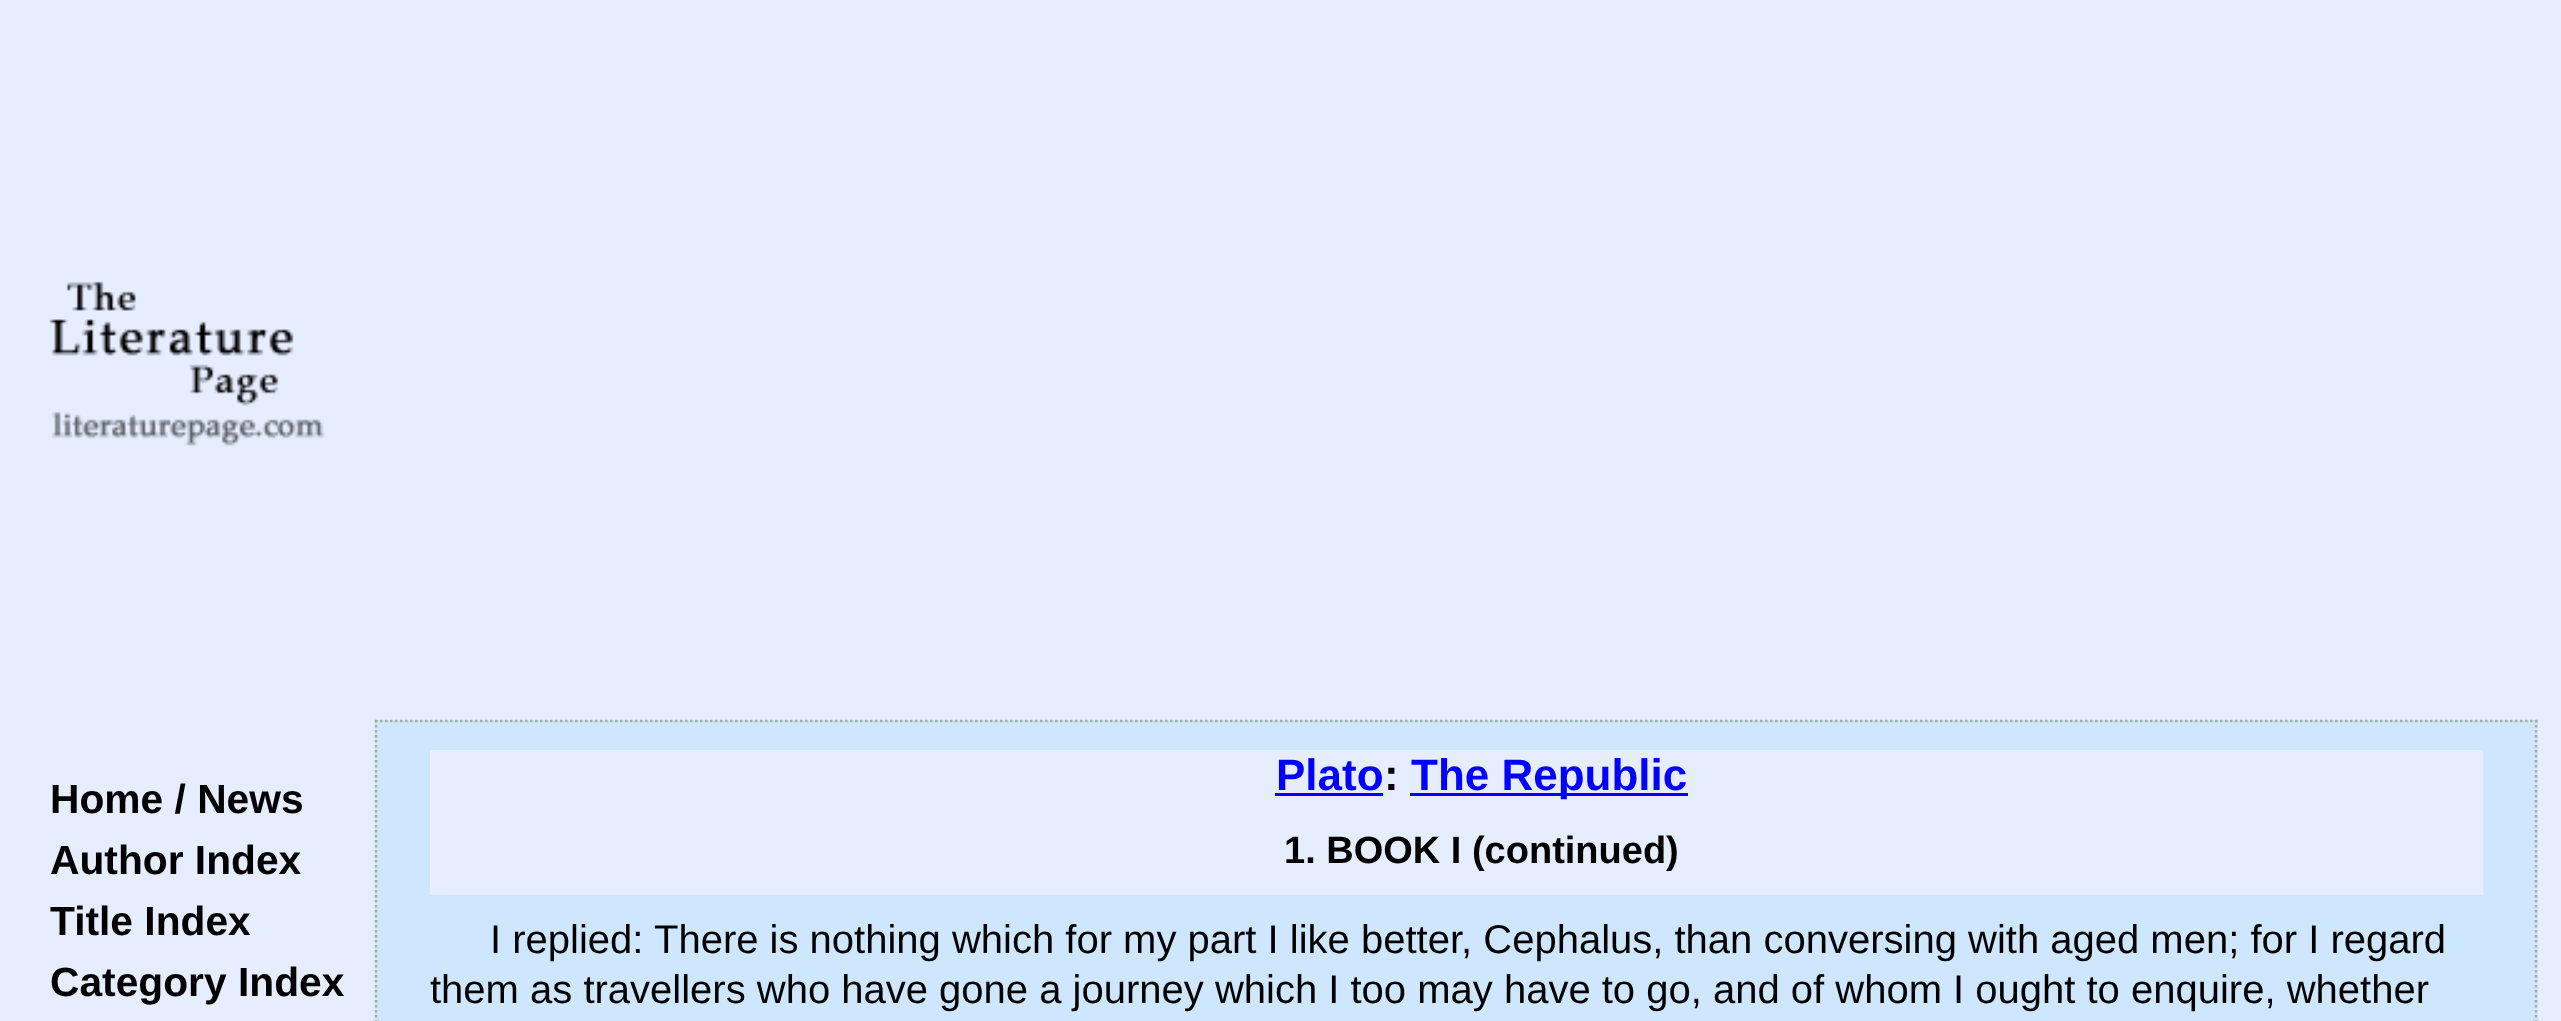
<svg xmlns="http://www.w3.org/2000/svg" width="2561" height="1021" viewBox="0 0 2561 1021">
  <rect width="100%" height="100%" fill="rgb(230,237,255)"/>
  <image x="49" y="281" width="276" height="165" href="pic1.png"/>
  <g font-family="Liberation Sans" font-size="40.75" font-weight="bold" fill="rgb(0,0,0)">
    <text>
      <tspan x="50" y="813">Home / News</tspan>
      <tspan x="50" y="874">Author Index</tspan>
      <tspan x="50" y="935">Title Index</tspan>
      <tspan x="50" y="996">Category Index</tspan>
    </text>
  </g>
  <rect x="375" y="720" width="2163" height="301" fill="rgb(206,231,255)"/>
  <path d="M375 721H2537.5" fill="none" stroke="rgb(166,173,159)" stroke-width="2.5" stroke-dasharray="2.5 2.5"/>
  <path d="M2536 720V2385" fill="none" stroke="rgb(166,173,159)" stroke-width="2.5" stroke-dasharray="2.5 2.5"/>
  <path d="M376 720V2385" fill="none" stroke="rgb(166,173,159)" stroke-width="2.5" stroke-dasharray="2.5 2.5"/>
  <rect x="430" y="750" width="2053" height="145" fill="rgb(230,237,255)"/>
  <text x="1276" y="790" font-family="Liberation Sans" font-size="44" font-weight="bold" fill="rgb(0,0,255)">Plato</text>
  <rect x="1275" y="793" width="108" height="3" fill="rgb(0,0,255)"/>
  <text x="1384" y="790" font-family="Liberation Sans" font-size="44" font-weight="bold" fill="rgb(0,0,0)">:</text>
  <rect x="1410" y="793" width="278" height="3" fill="rgb(0,0,255)"/>
  <text x="1411" y="790" font-family="Liberation Sans" font-size="44" font-weight="bold" fill="rgb(0,0,255)">The Republic</text>
  <text x="1284" y="863" font-family="Liberation Sans" font-size="38" font-weight="bold" fill="rgb(0,0,0)">1. BOOK I (continued)</text>
  <g font-family="Liberation Sans" font-size="40" fill="rgb(0,0,0)">
    <text x="490" y="953">I replied:</text>
    <text x="654" y="953">There is nothing which for my part I like better, Cephalus, than conversing with aged men; for I regard</text>
    <text x="430" y="1003">them as travellers who have gone a journey which I too may have to go, and of whom I ought to enquire, whether</text>
  </g>
</svg>
